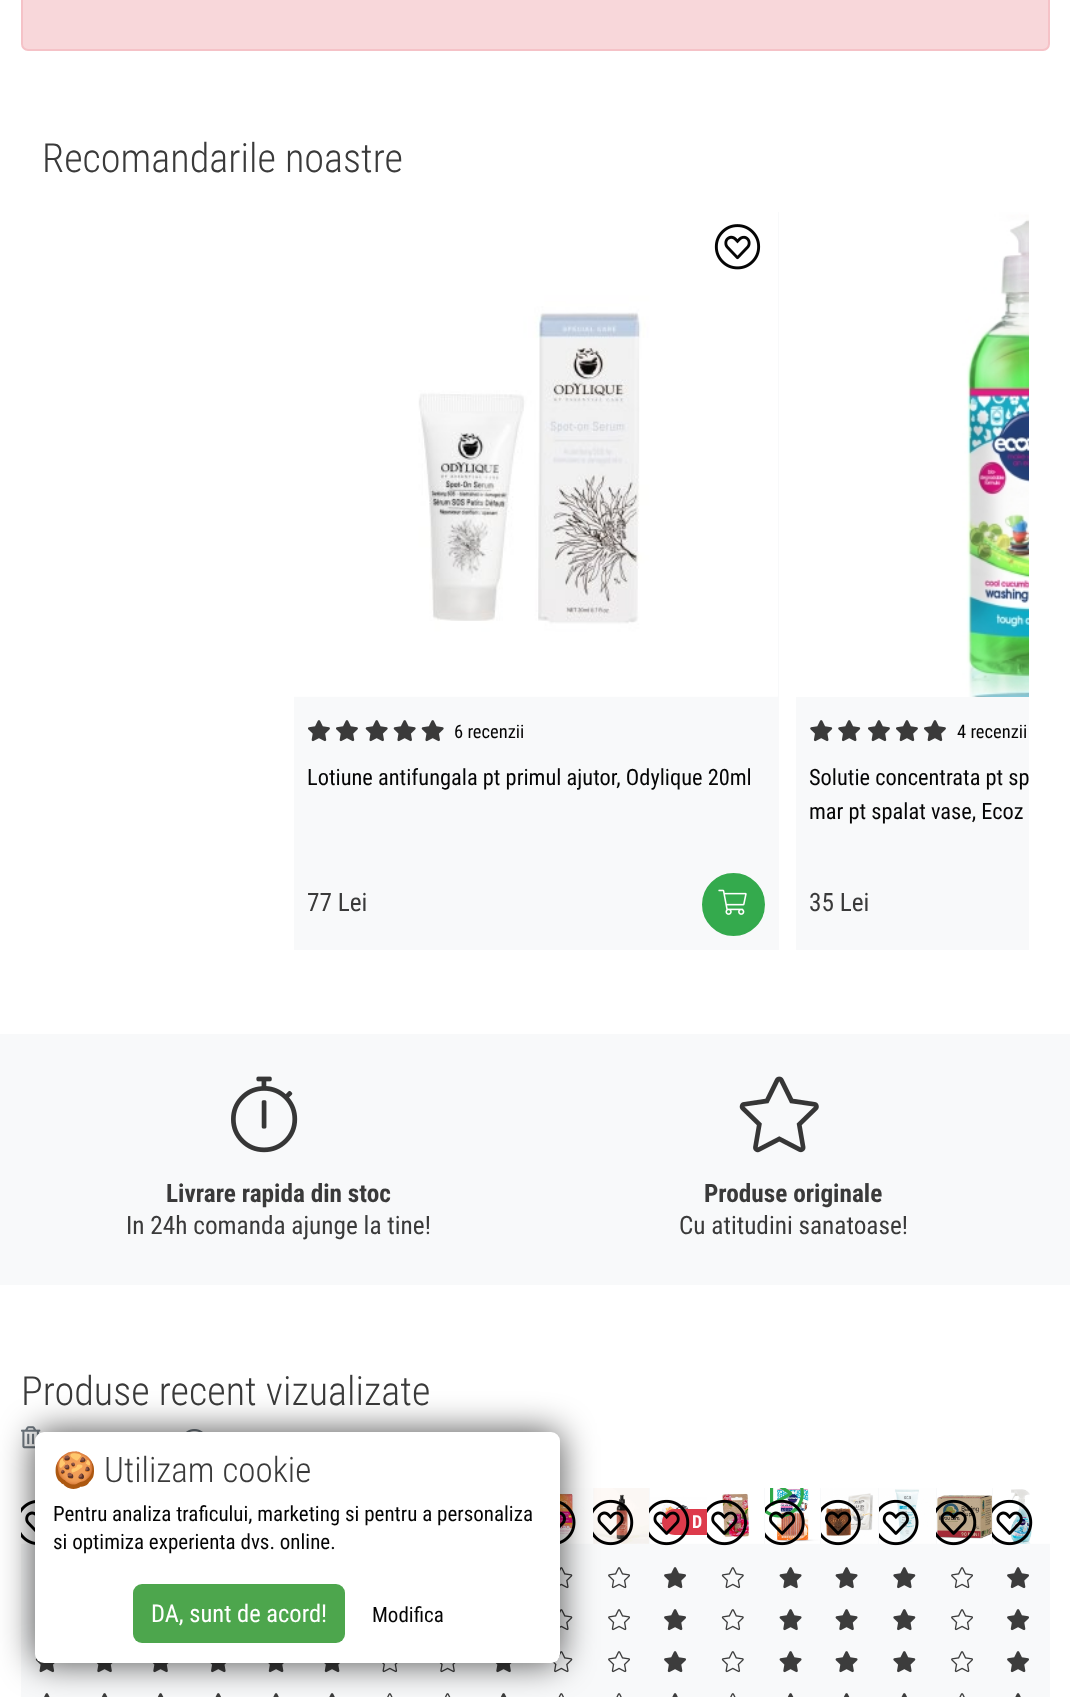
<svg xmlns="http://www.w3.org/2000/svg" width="1070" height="1697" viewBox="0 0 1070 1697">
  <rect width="100%" height="100%" fill="rgb(255,255,255)"/>
  <rect x="22" y="-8" width="1027" height="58" rx="6" fill="rgb(248,215,218)" stroke="rgb(245,194,199)" stroke-width="2"/>
  <text x="42" y="172" font-family="Roboto Condensed" font-size="40.25" font-weight="300" fill="rgb(58,58,58)">Recomandarile noastre</text>
  <rect x="294" y="212" width="485" height="738" fill="rgb(248,249,250)"/>
  <image x="294" y="212" width="484" height="485" href="pic1.png"/>
  <image x="714" y="224" width="47" height="46" href="pic2.png"/>
  <image x="308" y="720" width="22" height="22" href="pic3.png"/>
  <image x="336" y="720" width="22" height="22" href="pic3.png"/>
  <image x="365" y="720" width="23" height="22" href="pic4.png"/>
  <image x="393" y="720" width="23" height="22" href="pic4.png"/>
  <image x="421" y="720" width="23" height="22" href="pic4.png"/>
  <text x="454" y="738" font-family="Roboto Condensed" font-size="18.5" fill="rgb(5,5,5)">6 recenzii</text>
  <text x="307" y="785" font-family="Roboto Condensed" font-size="22.4" fill="rgb(5,5,5)">Lotiune antifungala pt primul ajutor, Odylique 20ml</text>
  <text x="307" y="911" font-family="Roboto Condensed" font-size="25.25" fill="rgb(58,58,58)">77 Lei</text>
  <circle cx="733.5" cy="904.5" r="30.5" fill="rgb(52,170,77)" stroke="rgb(52,170,77)" stroke-width="2"/>
  <image x="718" y="889" width="29" height="26" href="pic5.png"/>
  <rect x="796" y="697" width="233" height="253" fill="rgb(248,249,250)"/>
  <image x="796" y="212" width="233" height="485" href="pic6.png"/>
  <image x="810" y="720" width="23" height="22" href="pic7.png"/>
  <image x="838" y="720" width="23" height="22" href="pic7.png"/>
  <image x="868" y="720" width="22" height="22" href="pic3.png"/>
  <image x="896" y="720" width="22" height="22" href="pic3.png"/>
  <image x="924" y="720" width="22" height="22" href="pic3.png"/>
  <text x="957" y="738" font-family="Roboto Condensed" font-size="18.5" fill="rgb(5,5,5)">4 recenzii</text>
  <g font-family="Roboto Condensed" font-size="22.4" fill="rgb(5,5,5)">
    <text>
      <tspan x="809" y="785">Solutie concentrata pt sp</tspan>
      <tspan x="809" y="819">mar pt spalat vase, Ecoz</tspan>
    </text>
  </g>
  <text x="809" y="911" font-family="Roboto Condensed" font-size="25.25" fill="rgb(58,58,58)">35 Lei</text>
  <rect x="0" y="1034" width="1070" height="251" fill="rgb(248,249,250)"/>
  <image x="231" y="1076" width="67" height="77" href="pic8.png"/>
  <text x="166" y="1202" font-family="Roboto Condensed" font-size="25.25" font-weight="bold" fill="rgb(58,58,58)">Livrare rapida din stoc</text>
  <text x="126" y="1234" font-family="Roboto Condensed" font-size="25.25" fill="rgb(58,58,58)">In 24h comanda ajunge la tine!</text>
  <image x="739" y="1076" width="80" height="77" href="pic9.png"/>
  <text x="704" y="1202" font-family="Roboto Condensed" font-size="25.25" font-weight="bold" fill="rgb(58,58,58)">Produse originale</text>
  <text x="679" y="1234" font-family="Roboto Condensed" font-size="25.25" fill="rgb(58,58,58)">Cu atitudini sanatoase!</text>
  <text x="21" y="1405" font-family="Roboto Condensed" font-size="40.25" font-weight="300" fill="rgb(58,58,58)">Produse recent vizualizate</text>
  <image x="21" y="1426" width="20" height="23" href="pic10.png"/>
  <image x="186" y="1429" width="17" height="3" href="pic11.png"/>
  <rect x="21" y="1543" width="58" height="154" fill="rgb(248,249,250)"/>
  <image x="21" y="1488" width="14" height="56" href="pic12.png"/>
  <image x="21" y="1500" width="14" height="45" href="pic13.png"/>
  <image x="35" y="1658" width="20" height="15" href="pic14.png"/>
  <image x="44" y="1693" width="6" height="4" href="pic15.png"/>
  <rect x="536" y="1543" width="57" height="154" fill="rgb(248,249,250)"/>
  <image x="560" y="1488" width="33" height="56" href="pic16.png"/>
  <image x="560" y="1501" width="16" height="43" href="pic17.png"/>
  <image x="560" y="1567" width="13" height="22" href="pic18.png"/>
  <image x="560" y="1609" width="13" height="22" href="pic18.png"/>
  <image x="552" y="1651" width="21" height="22" href="pic19.png"/>
  <image x="558" y="1693" width="6" height="4" href="pic20.png"/>
  <rect x="593" y="1488" width="286" height="209" fill="rgb(248,249,250)"/>
  <image x="593" y="1488" width="56" height="56" href="pic21.png"/>
  <image x="593" y="1499" width="41" height="47" href="pic22.png"/>
  <image x="608" y="1567" width="22" height="22" href="pic23.png"/>
  <image x="608" y="1609" width="22" height="22" href="pic23.png"/>
  <image x="608" y="1651" width="22" height="22" href="pic23.png"/>
  <image x="616" y="1693" width="6" height="4" href="pic24.png"/>
  <image x="707" y="1488" width="57" height="56" href="pic25.png"/>
  <image x="707" y="1499" width="40" height="47" href="pic26.png"/>
  <image x="721" y="1567" width="23" height="22" href="pic27.png"/>
  <image x="721" y="1609" width="23" height="22" href="pic27.png"/>
  <image x="721" y="1651" width="23" height="22" href="pic27.png"/>
  <image x="730" y="1693" width="6" height="4" href="pic28.png"/>
  <image x="765" y="1488" width="55" height="56" href="pic29.png"/>
  <image x="765" y="1488" width="39" height="30" href="pic30.png"/>
  <image x="765" y="1499" width="40" height="47" href="pic31.png"/>
  <image x="779" y="1567" width="23" height="22" href="pic32.png"/>
  <image x="779" y="1609" width="23" height="22" href="pic32.png"/>
  <image x="779" y="1651" width="23" height="22" href="pic32.png"/>
  <image x="787" y="1693" width="7" height="4" href="pic33.png"/>
  <image x="821" y="1488" width="57" height="56" href="pic34.png"/>
  <image x="821" y="1499" width="40" height="47" href="pic35.png"/>
  <image x="835" y="1567" width="23" height="22" href="pic32.png"/>
  <image x="835" y="1609" width="23" height="22" href="pic32.png"/>
  <image x="835" y="1651" width="23" height="22" href="pic32.png"/>
  <image x="843" y="1693" width="7" height="4" href="pic33.png"/>
  <rect x="879" y="1543" width="57" height="154" fill="rgb(248,249,250)"/>
  <image x="879" y="1488" width="57" height="56" href="pic36.png"/>
  <image x="879" y="1499" width="40" height="47" href="pic37.png"/>
  <image x="893" y="1567" width="23" height="22" href="pic38.png"/>
  <image x="893" y="1609" width="23" height="22" href="pic38.png"/>
  <image x="893" y="1651" width="23" height="22" href="pic38.png"/>
  <image x="901" y="1693" width="6" height="4" href="pic39.png"/>
  <rect x="936" y="1488" width="114" height="209" fill="rgb(248,249,250)"/>
  <image x="937" y="1488" width="55" height="56" href="pic40.png"/>
  <image x="936" y="1499" width="41" height="47" href="pic41.png"/>
  <image x="951" y="1567" width="22" height="22" href="pic23.png"/>
  <image x="951" y="1609" width="22" height="22" href="pic23.png"/>
  <image x="951" y="1651" width="22" height="22" href="pic23.png"/>
  <image x="959" y="1693" width="6" height="4" href="pic24.png"/>
  <image x="650" y="1488" width="57" height="56" href="pic42.png"/>
  <path d="M675 1509H707V1535H675C668 1535 662 1529 662 1522C662 1515 668 1509 675 1509Z" fill="rgb(221,59,75)"/>
  <image x="649" y="1499" width="41" height="47" href="pic43.png"/>
  <text x="692" y="1528" font-family="Roboto Condensed" font-size="18" font-weight="bold" fill="rgb(255,255,255)">D</text>
  <image x="664" y="1567" width="22" height="22" href="pic44.png"/>
  <image x="664" y="1609" width="22" height="22" href="pic44.png"/>
  <image x="664" y="1651" width="22" height="22" href="pic44.png"/>
  <image x="672" y="1693" width="6" height="4" href="pic45.png"/>
  <image x="993" y="1488" width="57" height="56" href="pic46.png"/>
  <image x="992" y="1499" width="41" height="47" href="pic47.png"/>
  <image x="1007" y="1567" width="22" height="22" href="pic44.png"/>
  <image x="1007" y="1609" width="22" height="22" href="pic44.png"/>
  <image x="1007" y="1651" width="22" height="22" href="pic44.png"/>
  <image x="1015" y="1693" width="6" height="4" href="pic45.png"/>
  <rect x="79" y="1663" width="457" height="34" fill="rgb(248,249,250)"/>
  <image x="96" y="1663" width="17" height="10" href="pic48.png"/>
  <image x="101" y="1693" width="7" height="4" href="pic33.png"/>
  <image x="152" y="1663" width="17" height="10" href="pic48.png"/>
  <image x="157" y="1693" width="7" height="4" href="pic33.png"/>
  <image x="210" y="1663" width="17" height="10" href="pic49.png"/>
  <image x="215" y="1693" width="6" height="4" href="pic39.png"/>
  <image x="268" y="1663" width="16" height="10" href="pic50.png"/>
  <image x="273" y="1693" width="6" height="4" href="pic45.png"/>
  <image x="324" y="1663" width="16" height="10" href="pic50.png"/>
  <image x="329" y="1693" width="6" height="4" href="pic45.png"/>
  <image x="382" y="1663" width="16" height="10" href="pic51.png"/>
  <image x="387" y="1693" width="6" height="4" href="pic28.png"/>
  <image x="439" y="1663" width="17" height="10" href="pic52.png"/>
  <image x="444" y="1693" width="7" height="4" href="pic53.png"/>
  <image x="495" y="1663" width="17" height="10" href="pic48.png"/>
  <image x="500" y="1693" width="7" height="4" href="pic33.png"/>
  <rect x="35" y="1432" width="525" height="231" rx="9" fill="rgba(0,0,0,0.7)" filter="blur(17.5px)"/>
  <rect x="35" y="1432" width="525" height="231" rx="9" fill="rgb(255,255,255)"/>
  <text x="53" y="1482" font-family="Noto Color Emoji" font-size="35" fill="rgb(58,58,58)">🍪</text>
  <text x="104" y="1482" font-family="Roboto Condensed" font-size="35" font-weight="300" fill="rgb(58,58,58)">Utilizam cookie</text>
  <g font-family="Roboto Condensed" font-size="21" fill="rgb(5,5,5)">
    <text>
      <tspan x="53" y="1521">Pentru analiza traficului, marketing si pentru a personaliza</tspan>
      <tspan x="53" y="1549">si optimiza experienta dvs. online.</tspan>
    </text>
  </g>
  <rect x="133" y="1584" width="212" height="59" rx="9" fill="rgb(77,166,77)"/>
  <text x="151" y="1622" font-family="Roboto Condensed" font-size="24.5" fill="rgb(255,255,255)">DA, sunt de acord!</text>
  <text x="372" y="1622" font-family="Roboto Condensed" font-size="21" fill="rgb(5,5,5)">Modifica</text>
</svg>
